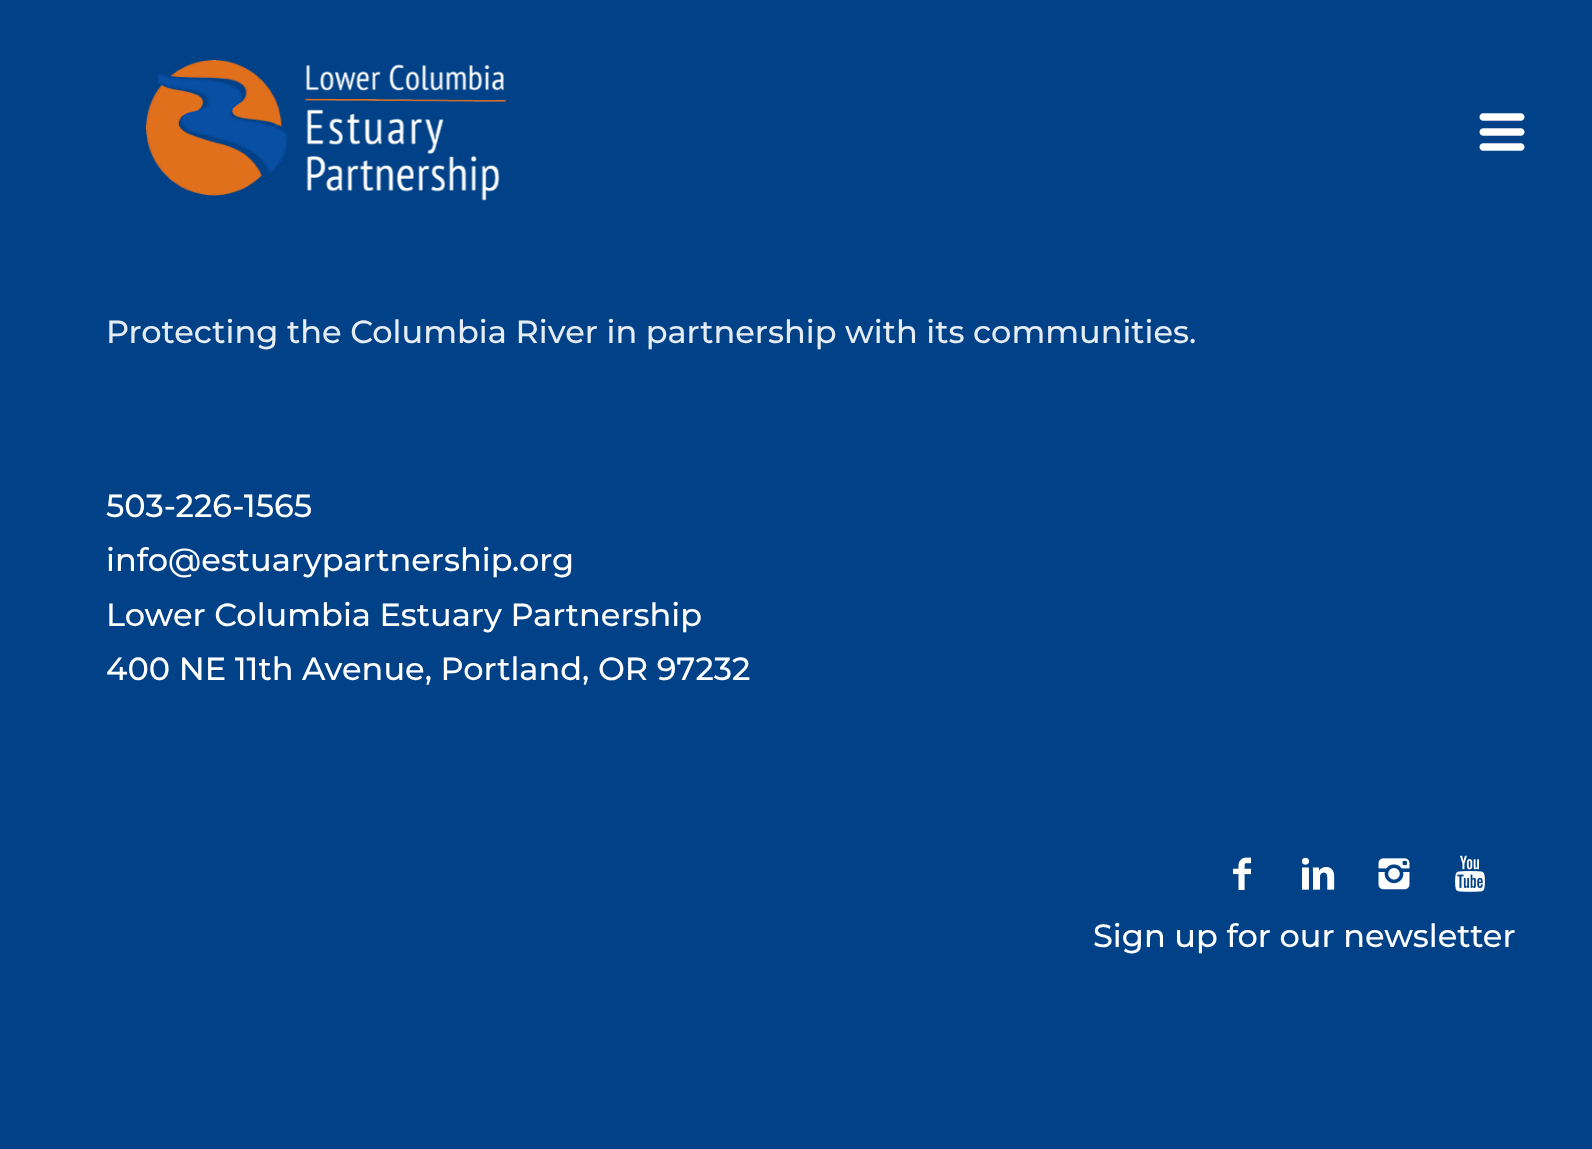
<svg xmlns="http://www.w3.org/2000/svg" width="1592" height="1149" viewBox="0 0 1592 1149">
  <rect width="100%" height="100%" fill="rgb(0,65,135)"/>
  <image x="146" y="60" width="360" height="141" href="pic1.png"/>
  <image x="1479" y="113" width="46" height="38" href="pic2.png"/>
  <text x="106" y="343" font-family="Montserrat" font-size="32" font-weight="500" fill="rgb(230,236,243)">Protecting the Columbia River in partnership with its communities.</text>
  <g font-family="Montserrat" font-size="32" font-weight="500" fill="rgb(255,255,255)">
    <text>
      <tspan x="106" y="517">503-226-1565</tspan>
      <tspan x="106" y="571">info@estuarypartnership.org</tspan>
      <tspan x="106" y="626">Lower Columbia Estuary Partnership</tspan>
      <tspan x="106" y="680">400 NE 11th Avenue, Portland, OR 97232</tspan>
    </text>
  </g>
  <image x="1233" y="857" width="18" height="33" href="pic3.png"/>
  <image x="1301" y="857" width="34" height="33" href="pic4.png"/>
  <image x="1378" y="858" width="32" height="32" href="pic5.png"/>
  <image x="1455" y="855" width="30" height="37" href="pic6.png"/>
  <text x="1093" y="947" font-family="Montserrat" font-size="32" font-weight="500" fill="rgb(255,255,255)">Sign up for our newsletter</text>
</svg>
